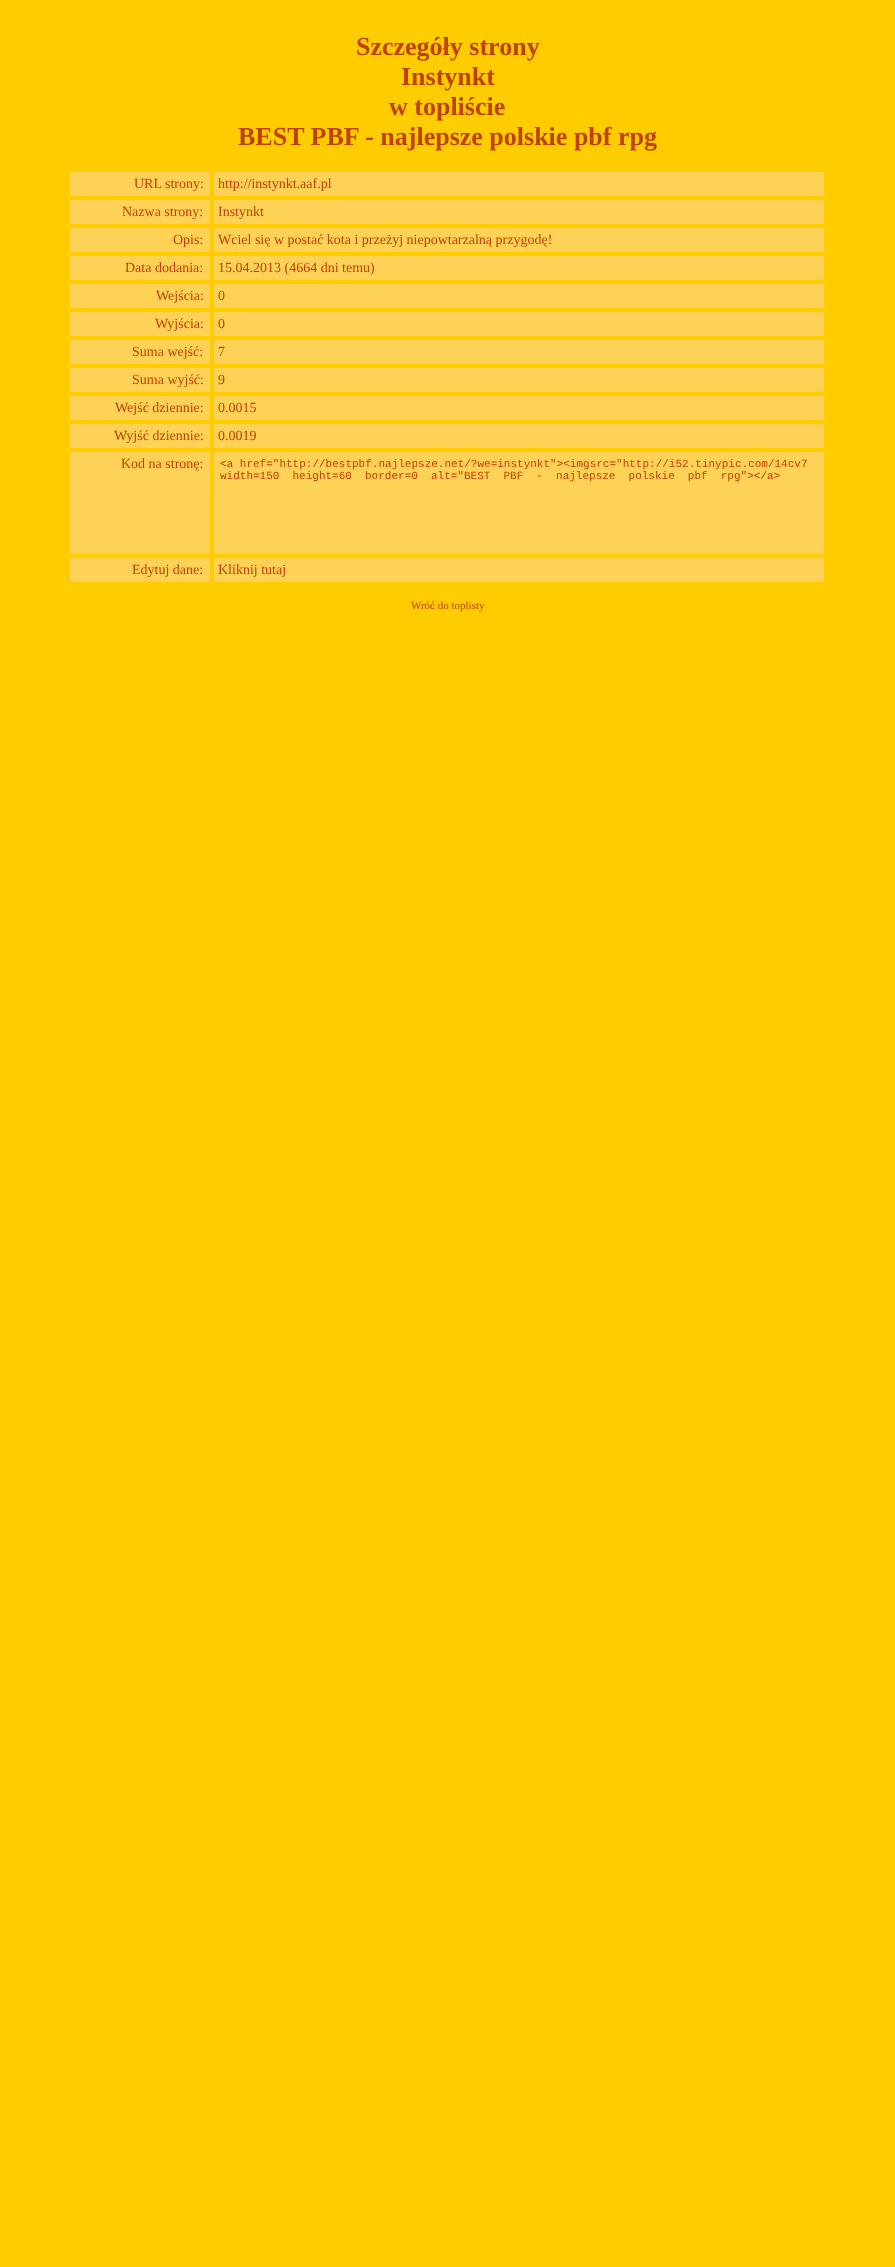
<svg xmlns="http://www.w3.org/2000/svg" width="895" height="2267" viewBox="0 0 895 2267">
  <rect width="100%" height="100%" fill="rgb(255,204,0)"/>
  <g font-family="Liberation Serif" font-size="26" font-weight="bold" fill="rgb(192,65,3)">
    <text x="356" y="55">Szczegóły strony</text>
    <text x="401" y="85">Instynkt</text>
    <text x="389" y="115">w topliście</text>
    <text x="238" y="145">BEST PBF - najlepsze polskie pbf rpg</text>
  </g>
  <rect x="70" y="172" width="754" height="24" fill="rgb(254,210,87)"/>
  <text x="134" y="188" font-family="Liberation Serif" font-size="14" fill="rgb(192,65,3)">URL strony:</text>
  <rect x="210" y="172" width="4" height="24" fill="rgb(255,204,0)"/>
  <text x="218" y="188" font-family="Liberation Serif" font-size="14" fill="rgb(192,65,3)">http://instynkt.aaf.pl</text>
  <rect x="70" y="200" width="754" height="24" fill="rgb(254,210,87)"/>
  <text x="122" y="216" font-family="Liberation Serif" font-size="14" fill="rgb(192,65,3)">Nazwa strony:</text>
  <rect x="210" y="200" width="4" height="24" fill="rgb(255,204,0)"/>
  <text x="218" y="216" font-family="Liberation Serif" font-size="14" fill="rgb(192,65,3)">Instynkt</text>
  <rect x="70" y="228" width="754" height="24" fill="rgb(254,210,87)"/>
  <text x="173" y="244" font-family="Liberation Serif" font-size="14" fill="rgb(192,65,3)">Opis:</text>
  <rect x="210" y="228" width="4" height="24" fill="rgb(255,204,0)"/>
  <text x="218" y="244" font-family="Liberation Serif" font-size="14" fill="rgb(192,65,3)">Wciel się w postać kota i przeżyj niepowtarzalną przygodę!</text>
  <rect x="70" y="256" width="754" height="24" fill="rgb(254,210,87)"/>
  <text x="125" y="272" font-family="Liberation Serif" font-size="14" fill="rgb(192,65,3)">Data dodania:</text>
  <rect x="210" y="256" width="4" height="24" fill="rgb(255,204,0)"/>
  <text x="218" y="272" font-family="Liberation Serif" font-size="14" fill="rgb(192,65,3)">15.04.2013 (4664 dni temu)</text>
  <rect x="70" y="284" width="754" height="24" fill="rgb(254,210,87)"/>
  <text x="156" y="300" font-family="Liberation Serif" font-size="14" fill="rgb(192,65,3)">Wejścia:</text>
  <rect x="210" y="284" width="4" height="24" fill="rgb(255,204,0)"/>
  <text x="218" y="300" font-family="Liberation Serif" font-size="14" fill="rgb(192,65,3)">0</text>
  <rect x="70" y="312" width="754" height="24" fill="rgb(254,210,87)"/>
  <text x="155" y="328" font-family="Liberation Serif" font-size="14" fill="rgb(192,65,3)">Wyjścia:</text>
  <rect x="210" y="312" width="4" height="24" fill="rgb(255,204,0)"/>
  <text x="218" y="328" font-family="Liberation Serif" font-size="14" fill="rgb(192,65,3)">0</text>
  <rect x="70" y="340" width="754" height="24" fill="rgb(254,210,87)"/>
  <text x="132" y="356" font-family="Liberation Serif" font-size="14" fill="rgb(192,65,3)">Suma wejść:</text>
  <rect x="210" y="340" width="4" height="24" fill="rgb(255,204,0)"/>
  <text x="218" y="356" font-family="Liberation Serif" font-size="14" fill="rgb(192,65,3)">7</text>
  <rect x="70" y="368" width="754" height="24" fill="rgb(254,210,87)"/>
  <text x="132" y="384" font-family="Liberation Serif" font-size="14" fill="rgb(192,65,3)">Suma wyjść:</text>
  <rect x="210" y="368" width="4" height="24" fill="rgb(255,204,0)"/>
  <text x="218" y="384" font-family="Liberation Serif" font-size="14" fill="rgb(192,65,3)">9</text>
  <rect x="70" y="396" width="754" height="24" fill="rgb(254,210,87)"/>
  <text x="115" y="412" font-family="Liberation Serif" font-size="14" fill="rgb(192,65,3)">Wejść dziennie:</text>
  <rect x="210" y="396" width="4" height="24" fill="rgb(255,204,0)"/>
  <text x="218" y="412" font-family="Liberation Serif" font-size="14" fill="rgb(192,65,3)">0.0015</text>
  <rect x="70" y="424" width="754" height="24" fill="rgb(254,210,87)"/>
  <text x="114" y="440" font-family="Liberation Serif" font-size="14" fill="rgb(192,65,3)">Wyjść dziennie:</text>
  <rect x="210" y="424" width="4" height="24" fill="rgb(255,204,0)"/>
  <text x="218" y="440" font-family="Liberation Serif" font-size="14" fill="rgb(192,65,3)">0.0019</text>
  <rect x="70" y="452" width="754" height="102" fill="rgb(254,210,87)"/>
  <text x="121" y="468" font-family="Liberation Serif" font-size="14" fill="rgb(192,65,3)">Kod na stronę:</text>
  <rect x="210" y="452" width="4" height="102" fill="rgb(255,204,0)"/>
  <g font-family="Liberation Mono" font-size="11" fill="rgb(192,65,3)">
    <text>
      <tspan x="220" y="467">&lt;a href="http://bestpbf.najlepsze.net/?we=instynkt"&gt;&lt;imgsrc="http://i52.tinypic.com/14cv7</tspan>
      <tspan x="220" y="479" word-spacing="6.5">width=150 height=60 border=0 alt="BEST PBF - najlepsze polskie pbf rpg"&gt;&lt;/a&gt;</tspan>
    </text>
  </g>
  <rect x="70" y="558" width="754" height="24" fill="rgb(254,210,87)"/>
  <text x="132" y="574" font-family="Liberation Serif" font-size="14" fill="rgb(192,65,3)">Edytuj dane:</text>
  <rect x="210" y="558" width="4" height="24" fill="rgb(255,204,0)"/>
  <text x="218" y="574" font-family="Liberation Serif" font-size="14" fill="rgb(192,65,3)">Kliknij tutaj</text>
  <text x="411" y="609" font-family="Liberation Serif" font-size="11" fill="rgb(192,65,3)">Wróć do toplisty</text>
</svg>
